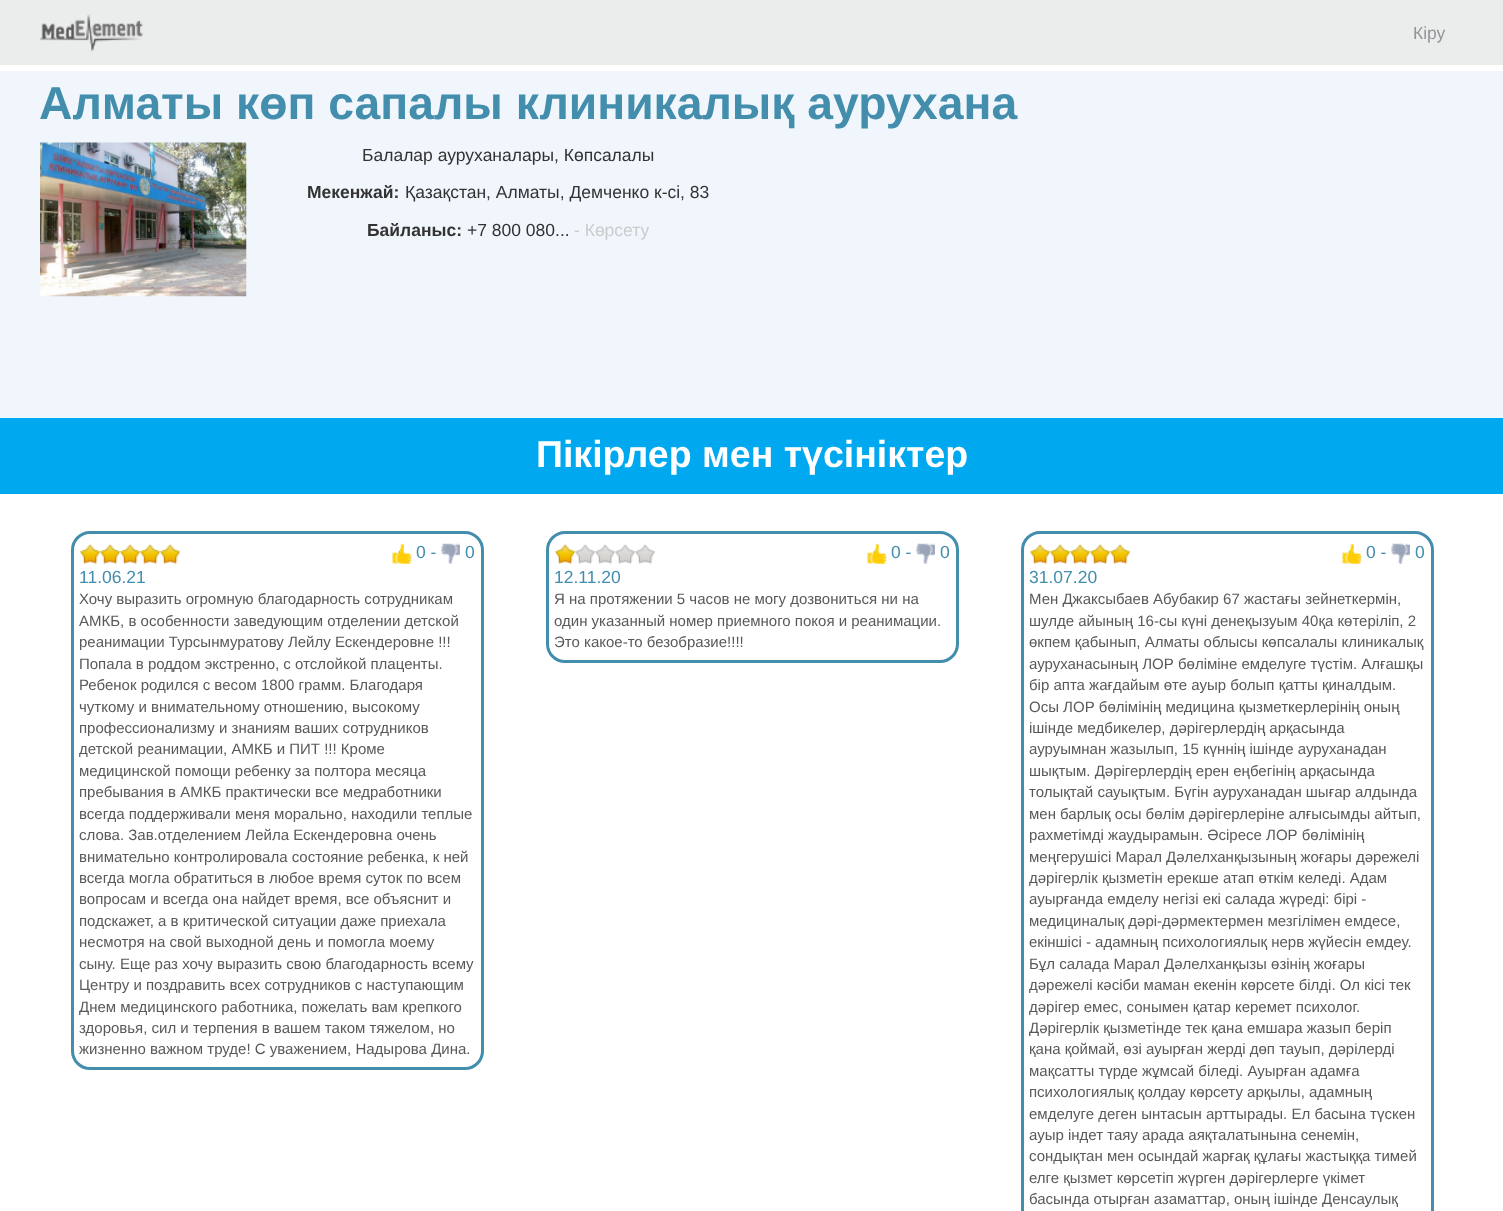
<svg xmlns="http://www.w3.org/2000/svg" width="1503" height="1211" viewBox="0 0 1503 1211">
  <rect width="100%" height="100%" fill="rgb(255,255,255)"/>
  <rect x="0" y="0" width="1503" height="65" fill="rgb(235,236,236)"/>
  <image x="40" y="14" width="103" height="38" href="pic1.png"/>
  <text x="1413" y="39" font-family="Liberation Sans" font-size="17.5" fill="rgb(147,149,152)">Кіру</text>
  <rect x="0" y="71" width="1503" height="347" fill="rgb(240,246,251)"/>
  <text x="39" y="119" font-family="Liberation Sans" font-size="46.25" font-weight="bold" fill="rgb(67,141,173)">Алматы көп сапалы клиникалық аурухана</text>
  <image x="40" y="142" width="207" height="155" href="pic2.png"/>
  <text x="362" y="161" font-family="Liberation Sans" font-size="17.5" fill="rgb(51,51,51)">Балалар ауруханалары, Көпсалалы</text>
  <text x="307" y="198" font-family="Liberation Sans" font-size="17.5" font-weight="bold" fill="rgb(51,51,51)">Мекенжай:</text>
  <text x="405" y="198" font-family="Liberation Sans" font-size="17.5" fill="rgb(51,51,51)">Қазақстан, Алматы, Демченко к-сі, 83</text>
  <text x="367" y="236" font-family="Liberation Sans" font-size="17.5" font-weight="bold" fill="rgb(51,51,51)">Байланыс:</text>
  <text x="467" y="236" font-family="Liberation Sans" font-size="17.5" fill="rgb(51,51,51)">+7 800 080...</text>
  <text x="574" y="236" font-family="Liberation Sans" font-size="17.5" fill="rgb(204,204,204)">- Көрсету</text>
  <rect x="0" y="418" width="1503" height="76" fill="rgb(0,168,240)"/>
  <text x="536" y="467" font-family="Liberation Sans" font-size="37.5" font-weight="bold" fill="rgb(255,255,255)">Пікірлер мен түсініктер</text>
  <rect x="72.5" y="532.5" width="410" height="536" rx="17.5" fill="none" stroke="rgb(67,141,173)" stroke-width="3"/>
  <image x="80" y="543" width="100" height="21" href="pic3.png"/>
  <image x="392" y="543" width="20" height="21" href="pic4.png"/>
  <text x="416" y="558" font-family="Liberation Sans" font-size="17.5" fill="rgb(67,141,173)">0 -</text>
  <image x="441" y="543" width="19" height="21" href="pic5.png"/>
  <g font-family="Liberation Sans" font-size="17.5" fill="rgb(67,141,173)">
    <text x="465" y="558">0</text>
    <text x="79" y="583">11.06.21</text>
  </g>
  <g font-family="Liberation Sans" font-size="15" fill="rgb(88,89,91)">
    <text>
      <tspan x="79" y="604">Хочу выразить огромную благодарность сотрудникам</tspan>
      <tspan x="79" y="626">АМКБ, в особенности заведующим отделении детской</tspan>
      <tspan x="79" y="647">реанимации Турсынмуратову Лейлу Ескендеровне !!!</tspan>
      <tspan x="79" y="669">Попала в роддом экстренно, с отслойкой плаценты.</tspan>
      <tspan x="79" y="690">Ребенок родился с весом 1800 грамм. Благодаря</tspan>
      <tspan x="79" y="712">чуткому и внимательному отношению, высокому</tspan>
      <tspan x="79" y="733">профессионализму и знаниям ваших сотрудников</tspan>
      <tspan x="79" y="754">детской реанимации, АМКБ и ПИТ !!! Кроме</tspan>
      <tspan x="79" y="776">медицинской помощи ребенку за полтора месяца</tspan>
      <tspan x="79" y="797">пребывания в АМКБ практически все медработники</tspan>
      <tspan x="79" y="819">всегда поддерживали меня морально, находили теплые</tspan>
      <tspan x="79" y="840">слова. Зав.отделением Лейла Ескендеровна очень</tspan>
      <tspan x="79" y="862">внимательно контролировала состояние ребенка, к ней</tspan>
      <tspan x="79" y="883">всегда могла обратиться в любое время суток по всем</tspan>
      <tspan x="79" y="904">вопросам и всегда она найдет время, все объяснит и</tspan>
      <tspan x="79" y="926">подскажет, а в критической ситуации даже приехала</tspan>
      <tspan x="79" y="947">несмотря на свой выходной день и помогла моему</tspan>
      <tspan x="79" y="969">сыну. Еще раз хочу выразить свою благодарность всему</tspan>
      <tspan x="79" y="990">Центру и поздравить всех сотрудников с наступающим</tspan>
      <tspan x="79" y="1012">Днем медицинского работника, пожелать вам крепкого</tspan>
      <tspan x="79" y="1033">здоровья, сил и терпения в вашем таком тяжелом, но</tspan>
      <tspan x="79" y="1054">жизненно важном труде! С уважением, Надырова Дина.</tspan>
    </text>
  </g>
  <rect x="547.5" y="532.5" width="410" height="129" rx="17.5" fill="none" stroke="rgb(67,141,173)" stroke-width="3"/>
  <image x="555" y="543" width="100" height="21" href="pic6.png"/>
  <image x="867" y="543" width="20" height="21" href="pic7.png"/>
  <text x="891" y="558" font-family="Liberation Sans" font-size="17.5" fill="rgb(67,141,173)">0 -</text>
  <image x="916" y="543" width="19" height="21" href="pic5.png"/>
  <g font-family="Liberation Sans" font-size="17.5" fill="rgb(67,141,173)">
    <text x="940" y="558">0</text>
    <text x="554" y="583">12.11.20</text>
  </g>
  <g font-family="Liberation Sans" font-size="15" fill="rgb(88,89,91)">
    <text>
      <tspan x="554" y="604">Я на протяжении 5 часов не могу дозвониться ни на</tspan>
      <tspan x="554" y="626">один указанный номер приемного покоя и реанимации.</tspan>
      <tspan x="554" y="647">Это какое-то безобразие!!!!</tspan>
    </text>
  </g>
  <rect x="1022.5" y="532.5" width="410" height="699" rx="17.5" fill="none" stroke="rgb(67,141,173)" stroke-width="3"/>
  <image x="1030" y="543" width="100" height="21" href="pic3.png"/>
  <image x="1342" y="543" width="20" height="21" href="pic4.png"/>
  <text x="1366" y="558" font-family="Liberation Sans" font-size="17.5" fill="rgb(67,141,173)">0 -</text>
  <image x="1391" y="543" width="19" height="21" href="pic5.png"/>
  <g font-family="Liberation Sans" font-size="17.5" fill="rgb(67,141,173)">
    <text x="1415" y="558">0</text>
    <text x="1029" y="583">31.07.20</text>
  </g>
  <g font-family="Liberation Sans" font-size="15" fill="rgb(88,89,91)">
    <text>
      <tspan x="1029" y="604">Мен Джаксыбаев Абубакир 67 жастағы зейнеткермін,</tspan>
      <tspan x="1029" y="626">шулде айының 16-сы күні денеқызуым 40қа көтеріліп, 2</tspan>
      <tspan x="1029" y="647">өкпем қабынып, Алматы облысы көпсалалы клиникалық</tspan>
      <tspan x="1029" y="669">ауруханасының ЛОР бөліміне емделуге түстім. Алғашқы</tspan>
      <tspan x="1029" y="690">бір апта жағдайым өте ауыр болып қатты қиналдым.</tspan>
      <tspan x="1029" y="712">Осы ЛОР бөлімінің медицина қызметкерлерінің оның</tspan>
      <tspan x="1029" y="733">ішінде медбикелер, дәрігерлердің арқасында</tspan>
      <tspan x="1029" y="754">ауруымнан жазылып, 15 күннің ішінде ауруханадан</tspan>
      <tspan x="1029" y="776">шықтым. Дәрігерлердің ерен еңбегінің арқасында</tspan>
      <tspan x="1029" y="797">толықтай сауықтым. Бүгін ауруханадан шығар алдында</tspan>
      <tspan x="1029" y="819">мен барлық осы бөлім дәрігерлеріне алғысымды айтып,</tspan>
      <tspan x="1029" y="840">рахметімді жаудырамын. Әсіресе ЛОР бөлімінің</tspan>
      <tspan x="1029" y="862">меңгерушісі Марал Дәлелханқызының жоғары дәрежелі</tspan>
      <tspan x="1029" y="883">дәрігерлік қызметін ерекше атап өткім келеді. Адам</tspan>
      <tspan x="1029" y="904">ауырғанда емделу негізі екі салада жүреді: бірі -</tspan>
      <tspan x="1029" y="926">медициналық дәрі-дәрмектермен мезгілімен емдесе,</tspan>
      <tspan x="1029" y="947">екіншісі - адамның психологиялық нерв жүйесін емдеу.</tspan>
      <tspan x="1029" y="969">Бұл салада Марал Дәлелханқызы өзінің жоғары</tspan>
      <tspan x="1029" y="990">дәрежелі кәсіби маман екенін көрсете білді. Ол кісі тек</tspan>
      <tspan x="1029" y="1012">дәрігер емес, сонымен қатар керемет психолог.</tspan>
      <tspan x="1029" y="1033">Дәрігерлік қызметінде тек қана емшара жазып беріп</tspan>
      <tspan x="1029" y="1054">қана қоймай, өзі ауырған жерді дөп тауып, дәрілерді</tspan>
      <tspan x="1029" y="1076">мақсатты түрде жұмсай біледі. Ауырған адамға</tspan>
      <tspan x="1029" y="1097">психологиялық қолдау көрсету арқылы, адамның</tspan>
      <tspan x="1029" y="1119">емделуге деген ынтасын арттырады. Ел басына түскен</tspan>
      <tspan x="1029" y="1140">ауыр індет таяу арада аяқталатынына сенемін,</tspan>
      <tspan x="1029" y="1161">сондықтан мен осындай жарғақ құлағы жастыққа тимей</tspan>
      <tspan x="1029" y="1183">елге қызмет көрсетіп жүрген дәрігерлерге үкімет</tspan>
      <tspan x="1029" y="1204">басында отырған азаматтар, оның ішінде Денсаулық</tspan>
    </text>
  </g>
</svg>
